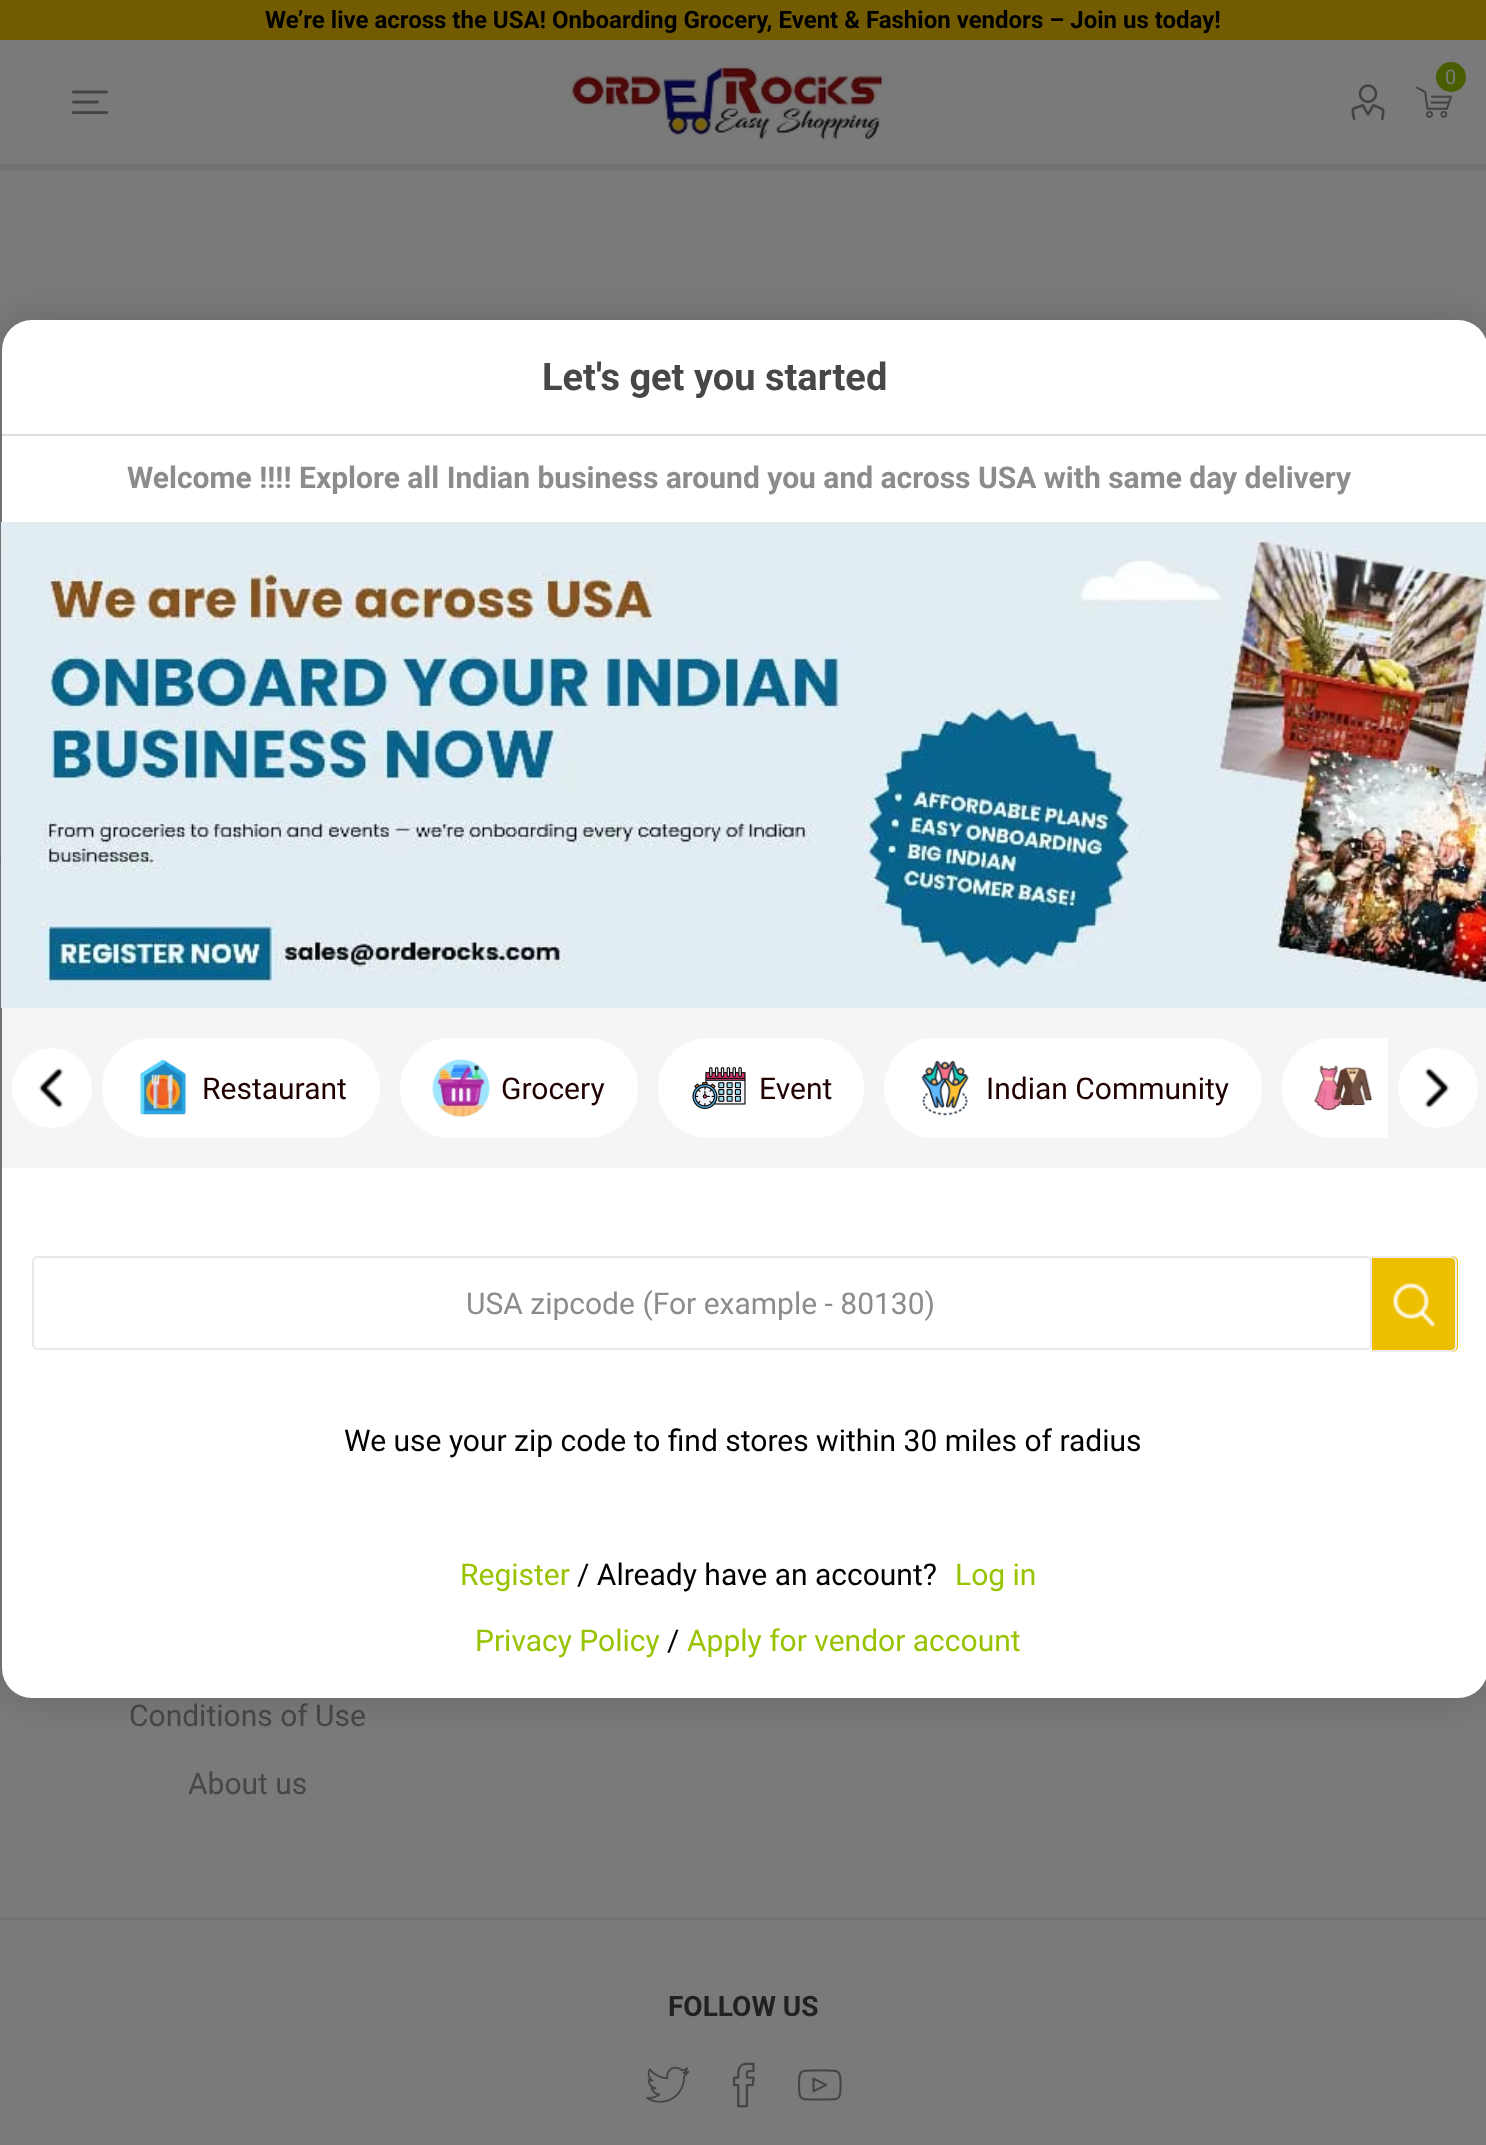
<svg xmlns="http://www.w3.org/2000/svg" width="1486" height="2145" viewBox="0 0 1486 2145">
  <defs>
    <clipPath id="clip1"><rect x="102" y="1038" width="1286" height="100"/></clipPath>
  </defs>
  <rect width="100%" height="100%" fill="rgb(122,122,122)"/>
  <rect x="0" y="0" width="1486" height="40" fill="rgb(114,91,0)"/>
  <text x="265" y="28" font-family="Roboto" font-size="24" font-weight="bold" fill="rgb(0,0,0)">We’re live across the USA! Onboarding Grocery, Event &amp; Fashion vendors – Join us today!</text>
  <rect x="0" y="164" width="1486" height="6" fill="rgb(114,114,114)"/>
  <image x="568" y="62" width="320" height="78" href="pic1.png"/>
  <image x="1416" y="86" width="36" height="32" href="pic2.png"/>
  <circle cx="1451" cy="77" r="15" fill="rgb(73,94,0)"/>
  <text x="1445" y="84" font-family="Roboto" font-size="20" fill="rgb(122,122,122)">0</text>
  <image x="72" y="90" width="36" height="24" href="pic3.png"/>
  <image x="1351" y="84" width="34" height="37" href="pic4.png"/>
  <rect x="0" y="858" width="2" height="6" fill="rgb(118,118,118)"/>
  <g font-family="Roboto" font-size="30" fill="rgb(71,71,71)">
    <text x="129" y="1726">Conditions of Use</text>
    <text x="188" y="1794">About us</text>
  </g>
  <rect x="0" y="1918" width="1486" height="2" fill="rgb(114,114,114)"/>
  <text x="668" y="2016" font-family="Roboto" font-size="28" font-weight="bold" fill="rgb(33,33,33)">FOLLOW US</text>
  <image x="646" y="2066" width="44" height="37" href="pic5.png"/>
  <image x="733" y="2062" width="22" height="46" href="pic6.png"/>
  <image x="798" y="2069" width="44" height="32" href="pic7.png"/>
  <rect x="2" y="320" width="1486" height="1378" rx="30" fill="rgba(0,0,0,0.15)" filter="blur(20px)"/>
  <rect x="2" y="320" width="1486" height="1378" rx="30" fill="rgb(255,255,255)"/>
  <rect x="2" y="434" width="1484" height="2" fill="rgb(222,222,222)"/>
  <text x="542" y="390" font-family="Roboto" font-size="38" font-weight="bold" fill="rgb(71,71,71)">Let's get you started</text>
  <text x="127" y="488" font-family="Roboto" font-size="30" font-weight="bold" fill="rgb(140,140,140)">Welcome !!!! Explore all Indian business around you and across USA with same day delivery</text>
  <image x="1" y="522" width="1485" height="486" href="pic8.png"/>
  <rect x="2" y="1008" width="1484" height="160" fill="rgb(245,245,245)"/>
  <circle cx="52" cy="1088" r="40" fill="rgb(255,255,255)"/>
  <image x="38" y="1067" width="26" height="42" href="pic9.png"/>
  <path d="M1332 1038H1388V1138H1332C1304.5 1138 1282 1115.5 1282 1088C1282 1060.5 1304.5 1038 1332 1038Z" fill="rgb(255,255,255)"/>
  <g clip-path="url(#clip1)">
    <rect x="1283" y="1039" width="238" height="98" rx="49" fill="none" stroke="rgb(255,255,255)" stroke-width="2"/>
  </g>
  <circle cx="1438" cy="1088" r="40" fill="rgb(255,255,255)"/>
  <image x="1424" y="1067" width="26" height="42" href="pic10.png"/>
  <rect x="103" y="1039" width="276" height="98" rx="49" fill="rgb(255,255,255)" stroke="rgb(255,255,255)" stroke-width="2"/>
  <image x="140" y="1059" width="47" height="56" href="pic11.png"/>
  <text x="202" y="1099" font-family="Roboto" font-size="30" fill="rgb(31,1,1)">Restaurant</text>
  <rect x="401" y="1039" width="236" height="98" rx="49" fill="rgb(255,255,255)" stroke="rgb(255,255,255)" stroke-width="2"/>
  <image x="432" y="1059" width="59" height="58" href="pic12.png"/>
  <text x="501" y="1099" font-family="Roboto" font-size="30" fill="rgb(31,1,1)">Grocery</text>
  <rect x="659" y="1039" width="204" height="98" rx="49" fill="rgb(255,255,255)" stroke="rgb(255,255,255)" stroke-width="2"/>
  <image x="692" y="1067" width="54" height="42" href="pic13.png"/>
  <text x="759" y="1099" font-family="Roboto" font-size="30" fill="rgb(31,1,1)">Event</text>
  <rect x="885" y="1039" width="376" height="98" rx="49" fill="rgb(255,255,255)" stroke="rgb(255,255,255)" stroke-width="2"/>
  <image x="921" y="1060" width="48" height="56" href="pic14.png"/>
  <text x="986" y="1099" font-family="Roboto" font-size="30" fill="rgb(31,1,1)">Indian Community</text>
  <image x="1313" y="1065" width="60" height="46" href="pic15.png"/>
  <rect x="33" y="1257" width="1338" height="92" rx="5" fill="none" stroke="rgb(231,231,231)" stroke-width="2"/>
  <text x="466" y="1314" font-family="Roboto" font-size="30" fill="rgb(140,140,140)">USA zipcode (For example - 80130)</text>
  <path d="M1372 1256H1452C1455.5 1256 1458 1258.5 1458 1262V1346C1458 1349.5 1455.5 1352 1452 1352H1372Z" fill="rgb(238,190,0)"/>
  <image x="1393" y="1283" width="42" height="44" href="pic16.png"/>
  <path d="M1371 1256H1451C1454 1256 1457 1259 1457 1262V1346C1457 1349 1454 1352 1451 1352H1371ZM1371 1258H1451C1453 1258 1455 1260 1455 1262V1346C1455 1348 1453 1350 1451 1350H1371Z" fill="rgb(238,238,238)" fill-rule="evenodd"/>
  <text x="344" y="1451" font-family="Roboto" font-size="30" fill="rgb(0,0,0)">We use your zip code to find stores within 30 miles of radius</text>
  <text x="460" y="1585" font-family="Roboto" font-size="30" fill="rgb(151,195,0)">Register</text>
  <text x="577" y="1585" font-family="Roboto" font-size="30" fill="rgb(0,0,0)">/ Already have an account?</text>
  <g font-family="Roboto" font-size="30" fill="rgb(151,195,0)">
    <text x="955" y="1585">Log in</text>
    <text x="475" y="1651">Privacy Policy</text>
  </g>
  <text x="667" y="1651" font-family="Roboto" font-size="30" fill="rgb(0,0,0)">/</text>
  <text x="687" y="1651" font-family="Roboto" font-size="30" fill="rgb(151,195,0)">Apply for vendor account</text>
</svg>
